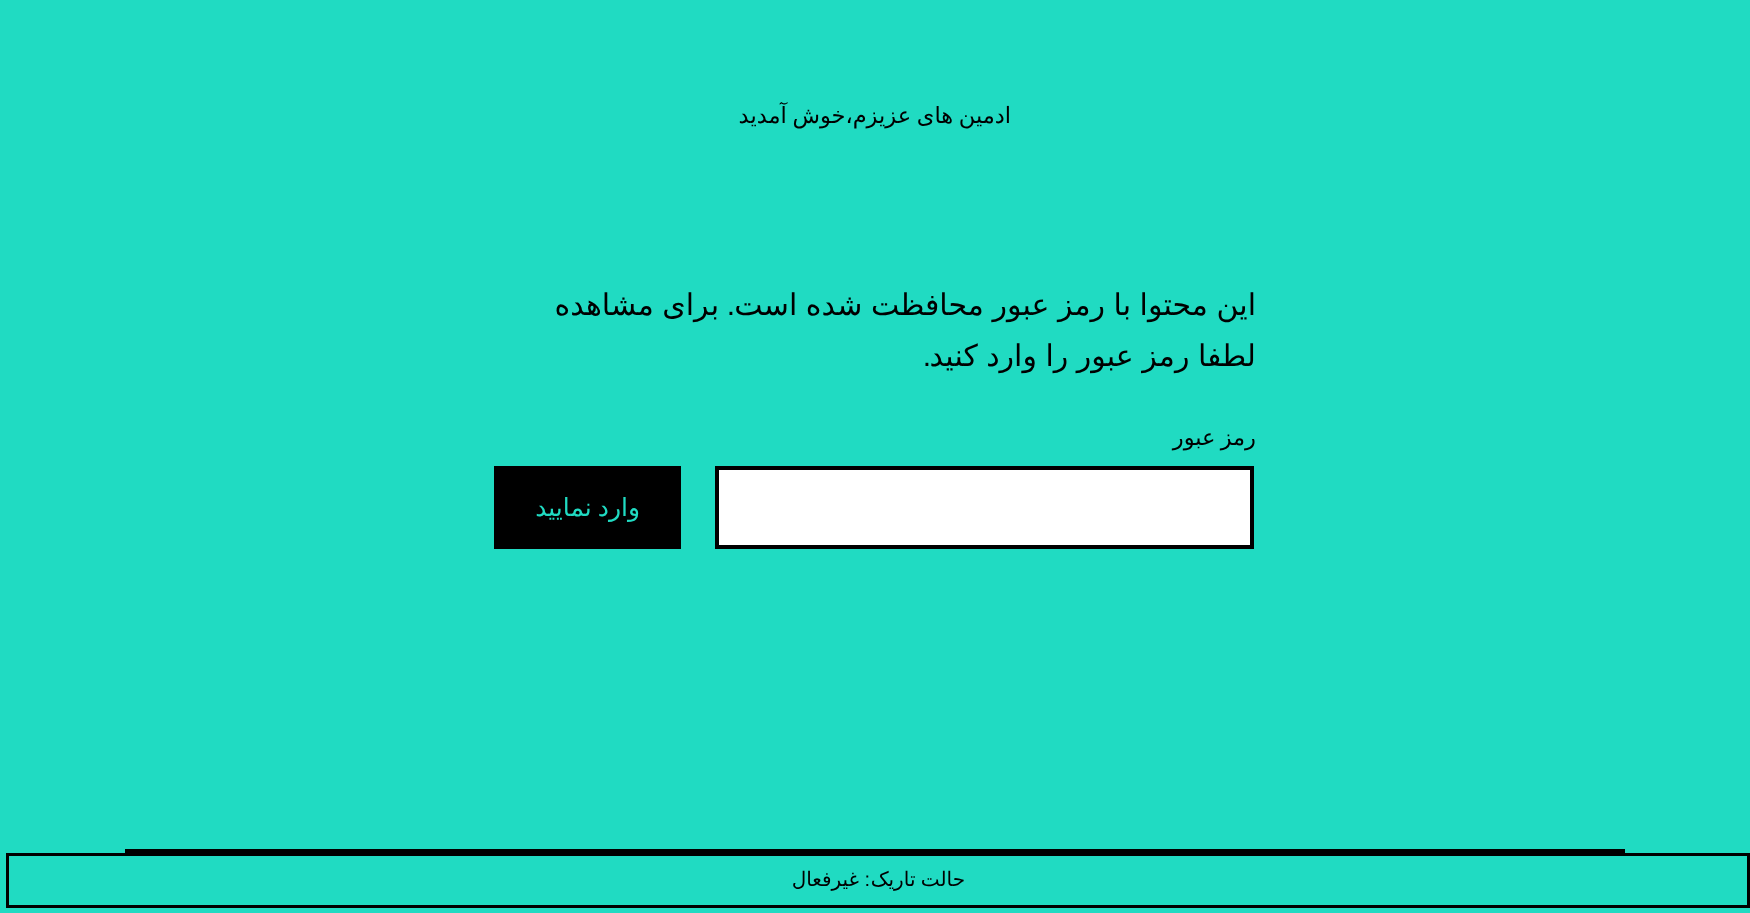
<svg xmlns="http://www.w3.org/2000/svg" width="1750" height="913" viewBox="0 0 1750 913">
  <rect width="100%" height="100%" fill="rgb(32,219,194)"/>
  <text x="1011" y="123" word-spacing="-1.5" font-family="DejaVu Sans" font-size="22.5" direction="rtl" fill="rgb(0,0,0)">ادمین های عزیزم،خوش آمدید</text>
  <text x="1256" y="315" word-spacing="-1" font-family="DejaVu Sans" font-size="30" direction="rtl" fill="rgb(0,0,0)">این محتوا با رمز عبور محافظت شده است</text>
  <text x="735" y="315" font-family="Liberation Sans" font-size="30" direction="rtl" fill="rgb(0,0,0)">.</text>
  <g font-family="DejaVu Sans" font-size="30" direction="rtl" fill="rgb(0,0,0)">
    <text x="719" y="315" word-spacing="-1">برای مشاهده</text>
    <text x="1256" y="366" word-spacing="-1">لطفا رمز عبور را وارد کنید</text>
  </g>
  <text x="931" y="366" font-family="Liberation Sans" font-size="30" direction="rtl" fill="rgb(0,0,0)">.</text>
  <text x="1256" y="445" word-spacing="-2" font-family="DejaVu Sans" font-size="22.5" direction="rtl" fill="rgb(0,0,0)">رمز عبور</text>
  <rect x="717" y="468" width="535" height="79" fill="rgb(255,255,255)" stroke="rgb(0,0,0)" stroke-width="4"/>
  <rect x="494" y="466" width="187" height="83" fill="rgb(0,0,0)"/>
  <text x="640" y="516" word-spacing="-2" font-family="DejaVu Sans" font-size="25" direction="rtl" fill="rgb(32,219,194)">وارد نمایید</text>
  <rect x="125" y="849" width="1500" height="4" fill="rgb(0,0,0)"/>
  <rect x="7.5" y="854.5" width="1741" height="52" fill="none" stroke="rgb(0,0,0)" stroke-width="3"/>
  <text x="965" y="886" word-spacing="-1" font-family="DejaVu Sans" font-size="20" direction="rtl" fill="rgb(0,0,0)">حالت تاریک</text>
  <text x="870" y="886" font-family="Liberation Sans" font-size="20" direction="rtl" fill="rgb(0,0,0)">:</text>
  <text x="859" y="886" font-family="DejaVu Sans" font-size="20" direction="rtl" fill="rgb(0,0,0)">غیرفعال</text>
</svg>
